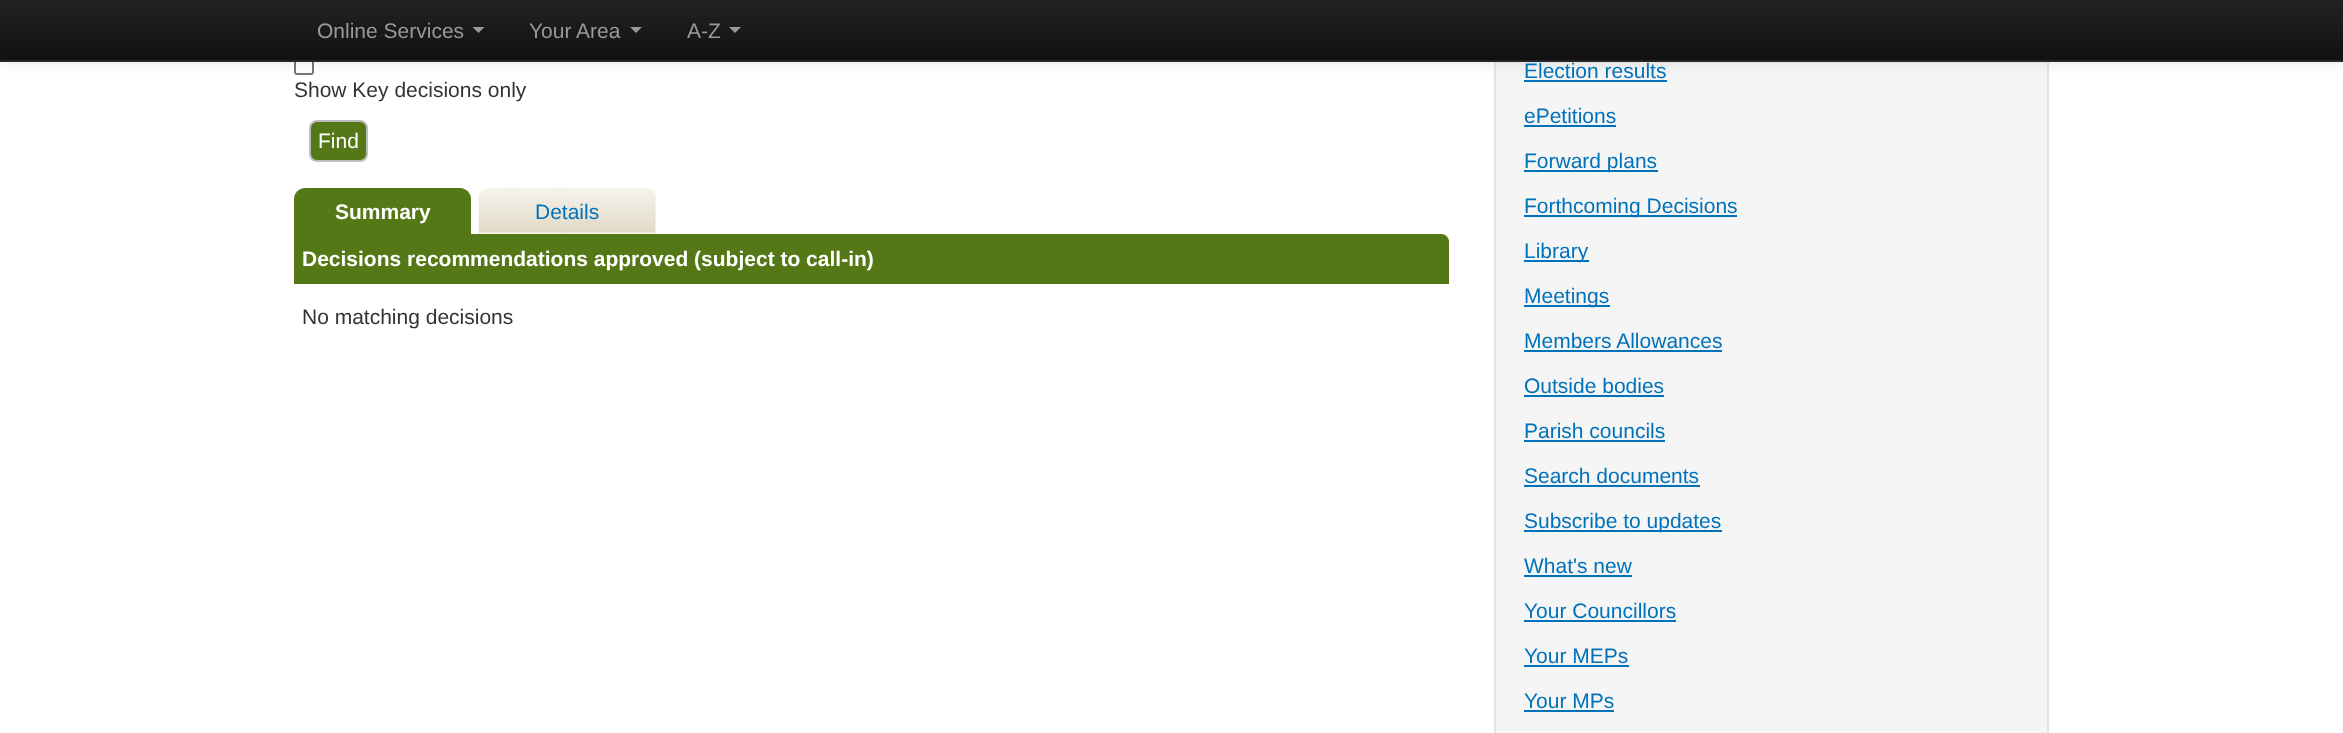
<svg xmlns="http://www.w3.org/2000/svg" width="2343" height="733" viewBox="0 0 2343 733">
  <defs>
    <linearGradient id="g1" gradientUnits="userSpaceOnUse" x1="1172" y1="0" x2="1172" y2="60"><stop offset="0" stop-color="rgb(34,34,34)"/><stop offset="1" stop-color="rgb(17,17,17)"/></linearGradient>
  </defs>
  <rect width="100%" height="100%" fill="rgb(255,255,255)"/>
  <rect x="295" y="57" width="18" height="17" rx="2" fill="none" stroke="rgb(118,118,118)" stroke-width="2"/>
  <rect x="1496" y="62" width="551" height="671" fill="rgb(245,245,245)"/>
  <rect x="1495" y="-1" width="553" height="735" fill="none" stroke="rgb(227,227,227)" stroke-width="2"/>
  <rect x="1524" y="80" width="143" height="2" fill="rgb(0,114,186)"/>
  <rect x="0" y="2" width="2343" height="61" fill="rgba(0,0,0,0.1)" filter="blur(7.5px)"/>
  <rect x="0" y="0" width="2343" height="60" fill="url(#g1)"/>
  <rect x="0" y="60" width="2343" height="2" fill="rgb(37,37,37)"/>
  <text x="317" y="38" font-family="Liberation Sans" font-size="21" fill="rgb(153,153,153)">Online Services</text>
  <path d="M472.5 27H484.5L478.5 33Z" fill="rgb(153,153,153)"/>
  <text x="529" y="38" font-family="Liberation Sans" font-size="21" fill="rgb(153,153,153)">Your Area</text>
  <path d="M630 27H642L636 33Z" fill="rgb(153,153,153)"/>
  <text x="687" y="38" font-family="Liberation Sans" font-size="21" fill="rgb(153,153,153)">A-Z</text>
  <path d="M729 27H741L735 33Z" fill="rgb(153,153,153)"/>
  <text x="294" y="97" font-family="Liberation Sans" font-size="21" fill="rgb(51,51,51)">Show Key decisions only</text>
  <rect x="310" y="121" width="57" height="40" rx="7" fill="rgb(85,120,22)" stroke="rgb(189,188,188)" stroke-width="2"/>
  <text x="318" y="148" font-family="Liberation Sans" font-size="21" fill="rgb(255,255,255)">Find</text>
  <path d="M305 188H460C466 188 471 193 471 199V234H294V199C294 193 299 188 305 188Z" fill="rgb(85,120,22)"/>
  <text x="335" y="219" font-family="Liberation Sans" font-size="21" font-weight="bold" fill="rgb(255,255,255)">Summary</text>
  <path d="M490 188H645C651 188 656 193 656 199V234H479V199C479 193 484 188 490 188Z" fill="rgb(243,243,243)"/>
  <image x="478" y="187" width="178" height="47" href="pic1.png"/>
  <text x="535" y="219" font-family="Liberation Sans" font-size="21" fill="rgb(0,114,186)">Details</text>
  <path d="M294 234H1441C1445.5 234 1449 237.5 1449 242V284H294Z" fill="rgb(85,120,22)"/>
  <text x="302" y="266" font-family="Liberation Sans" font-size="21" font-weight="bold" fill="rgb(255,255,255)">Decisions recommendations approved (subject to call-in)</text>
  <text x="302" y="324" font-family="Liberation Sans" font-size="21" fill="rgb(51,51,51)">No matching decisions</text>
  <g font-family="Liberation Sans" font-size="21" fill="rgb(0,114,186)">
    <text x="1524" y="78">Election results</text>
    <text x="1524" y="123">ePetitions</text>
  </g>
  <rect x="1524" y="125" width="92" height="2" fill="rgb(0,114,186)"/>
  <rect x="1524" y="170" width="134" height="2" fill="rgb(0,114,186)"/>
  <text x="1524" y="168" font-family="Liberation Sans" font-size="21" fill="rgb(0,114,186)">Forward plans</text>
  <rect x="1524" y="215" width="213" height="2" fill="rgb(0,114,186)"/>
  <text x="1524" y="213" font-family="Liberation Sans" font-size="21" fill="rgb(0,114,186)">Forthcoming Decisions</text>
  <rect x="1524" y="260" width="65" height="2" fill="rgb(0,114,186)"/>
  <text x="1524" y="258" font-family="Liberation Sans" font-size="21" fill="rgb(0,114,186)">Library</text>
  <rect x="1524" y="305" width="86" height="2" fill="rgb(0,114,186)"/>
  <g font-family="Liberation Sans" font-size="21" fill="rgb(0,114,186)">
    <text x="1524" y="303">Meetings</text>
    <text x="1524" y="348">Members Allowances</text>
  </g>
  <rect x="1524" y="350" width="198" height="2" fill="rgb(0,114,186)"/>
  <text x="1524" y="393" font-family="Liberation Sans" font-size="21" fill="rgb(0,114,186)">Outside bodies</text>
  <rect x="1524" y="395" width="140" height="2" fill="rgb(0,114,186)"/>
  <text x="1524" y="438" font-family="Liberation Sans" font-size="21" fill="rgb(0,114,186)">Parish councils</text>
  <rect x="1524" y="440" width="141" height="2" fill="rgb(0,114,186)"/>
  <text x="1524" y="483" font-family="Liberation Sans" font-size="21" fill="rgb(0,114,186)">Search documents</text>
  <rect x="1524" y="485" width="176" height="2" fill="rgb(0,114,186)"/>
  <rect x="1524" y="530" width="198" height="2" fill="rgb(0,114,186)"/>
  <g font-family="Liberation Sans" font-size="21" fill="rgb(0,114,186)">
    <text x="1524" y="528">Subscribe to updates</text>
    <text x="1524" y="573">What's new</text>
  </g>
  <rect x="1524" y="575" width="108" height="2" fill="rgb(0,114,186)"/>
  <text x="1524" y="618" font-family="Liberation Sans" font-size="21" fill="rgb(0,114,186)">Your Councillors</text>
  <rect x="1524" y="620" width="152" height="2" fill="rgb(0,114,186)"/>
  <text x="1524" y="663" font-family="Liberation Sans" font-size="21" fill="rgb(0,114,186)">Your MEPs</text>
  <rect x="1524" y="665" width="105" height="2" fill="rgb(0,114,186)"/>
  <text x="1524" y="708" font-family="Liberation Sans" font-size="21" fill="rgb(0,114,186)">Your MPs</text>
  <rect x="1524" y="710" width="90" height="2" fill="rgb(0,114,186)"/>
</svg>
